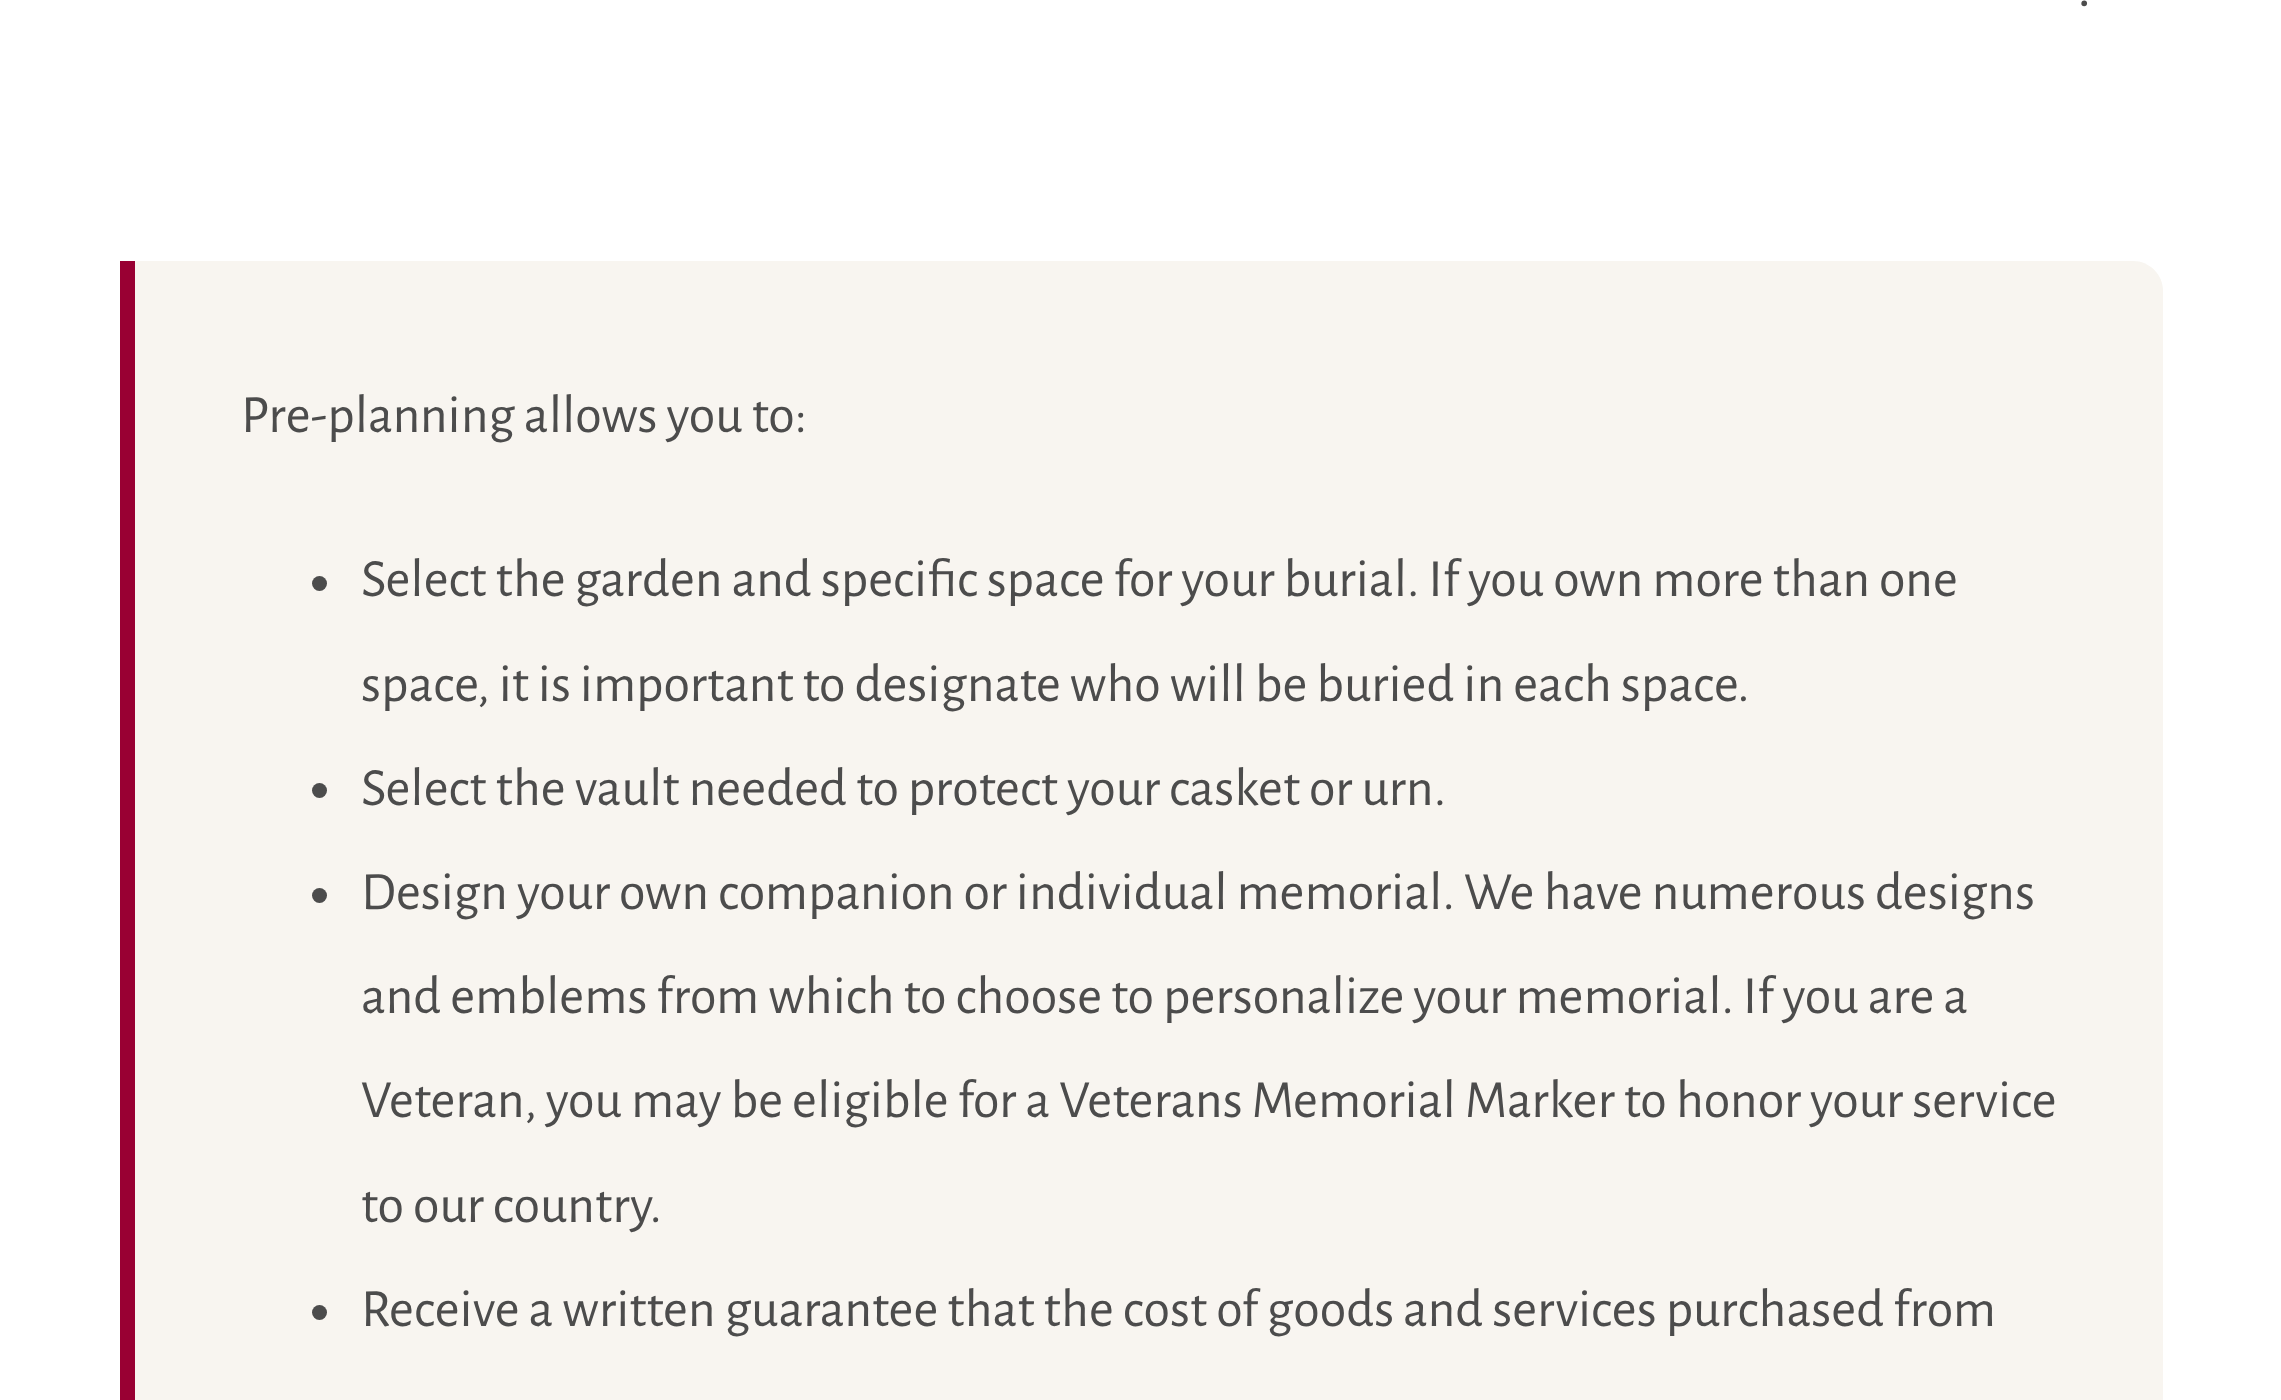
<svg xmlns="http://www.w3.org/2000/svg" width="2281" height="1400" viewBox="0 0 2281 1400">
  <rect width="100%" height="100%" fill="rgb(255,255,255)"/>
  <text x="2077" y="6" font-family="Alegreya Sans" font-size="63" fill="rgb(76,76,76)">.</text>
  <path d="M135 261H2133C2149.5 261 2163 274.5 2163 291V1400C2163 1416.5 2149.5 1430 2133 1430H135Z" fill="rgb(248,245,240)"/>
  <rect x="120" y="261" width="15" height="1139" fill="rgb(153,0,51)"/>
  <text x="241" y="432" font-family="Alegreya Sans" font-size="54" fill="rgb(76,76,76)">Pre-planning allows you to:</text>
  <circle cx="319.5" cy="583.5" r="7.5" fill="rgb(76,76,76)"/>
  <g font-family="Alegreya Sans" font-size="54" fill="rgb(76,76,76)">
    <text>
      <tspan x="361" y="596">Select the garden and specific space for your burial. If you own more than one</tspan>
      <tspan x="361" y="701">space, it is important to designate who will be buried in each space.</tspan>
    </text>
  </g>
  <circle cx="319.5" cy="790.5" r="7.5" fill="rgb(76,76,76)"/>
  <text x="361" y="805" font-family="Alegreya Sans" font-size="54" fill="rgb(76,76,76)">Select the vault needed to protect your casket or urn.</text>
  <circle cx="319.5" cy="895.5" r="7.5" fill="rgb(76,76,76)"/>
  <g font-family="Alegreya Sans" font-size="54" fill="rgb(76,76,76)">
    <text>
      <tspan x="361" y="909">Design your own companion or individual memorial. We have numerous designs</tspan>
      <tspan x="361" y="1013">and emblems from which to choose to personalize your memorial. If you are a</tspan>
      <tspan x="361" y="1117">Veteran, you may be eligible for a Veterans Memorial Marker to honor your service</tspan>
      <tspan x="361" y="1222">to our country.</tspan>
    </text>
  </g>
  <circle cx="319.5" cy="1312.5" r="7.5" fill="rgb(76,76,76)"/>
  <text x="361" y="1326" font-family="Alegreya Sans" font-size="54" fill="rgb(76,76,76)">Receive a written guarantee that the cost of goods and services purchased from</text>
</svg>
